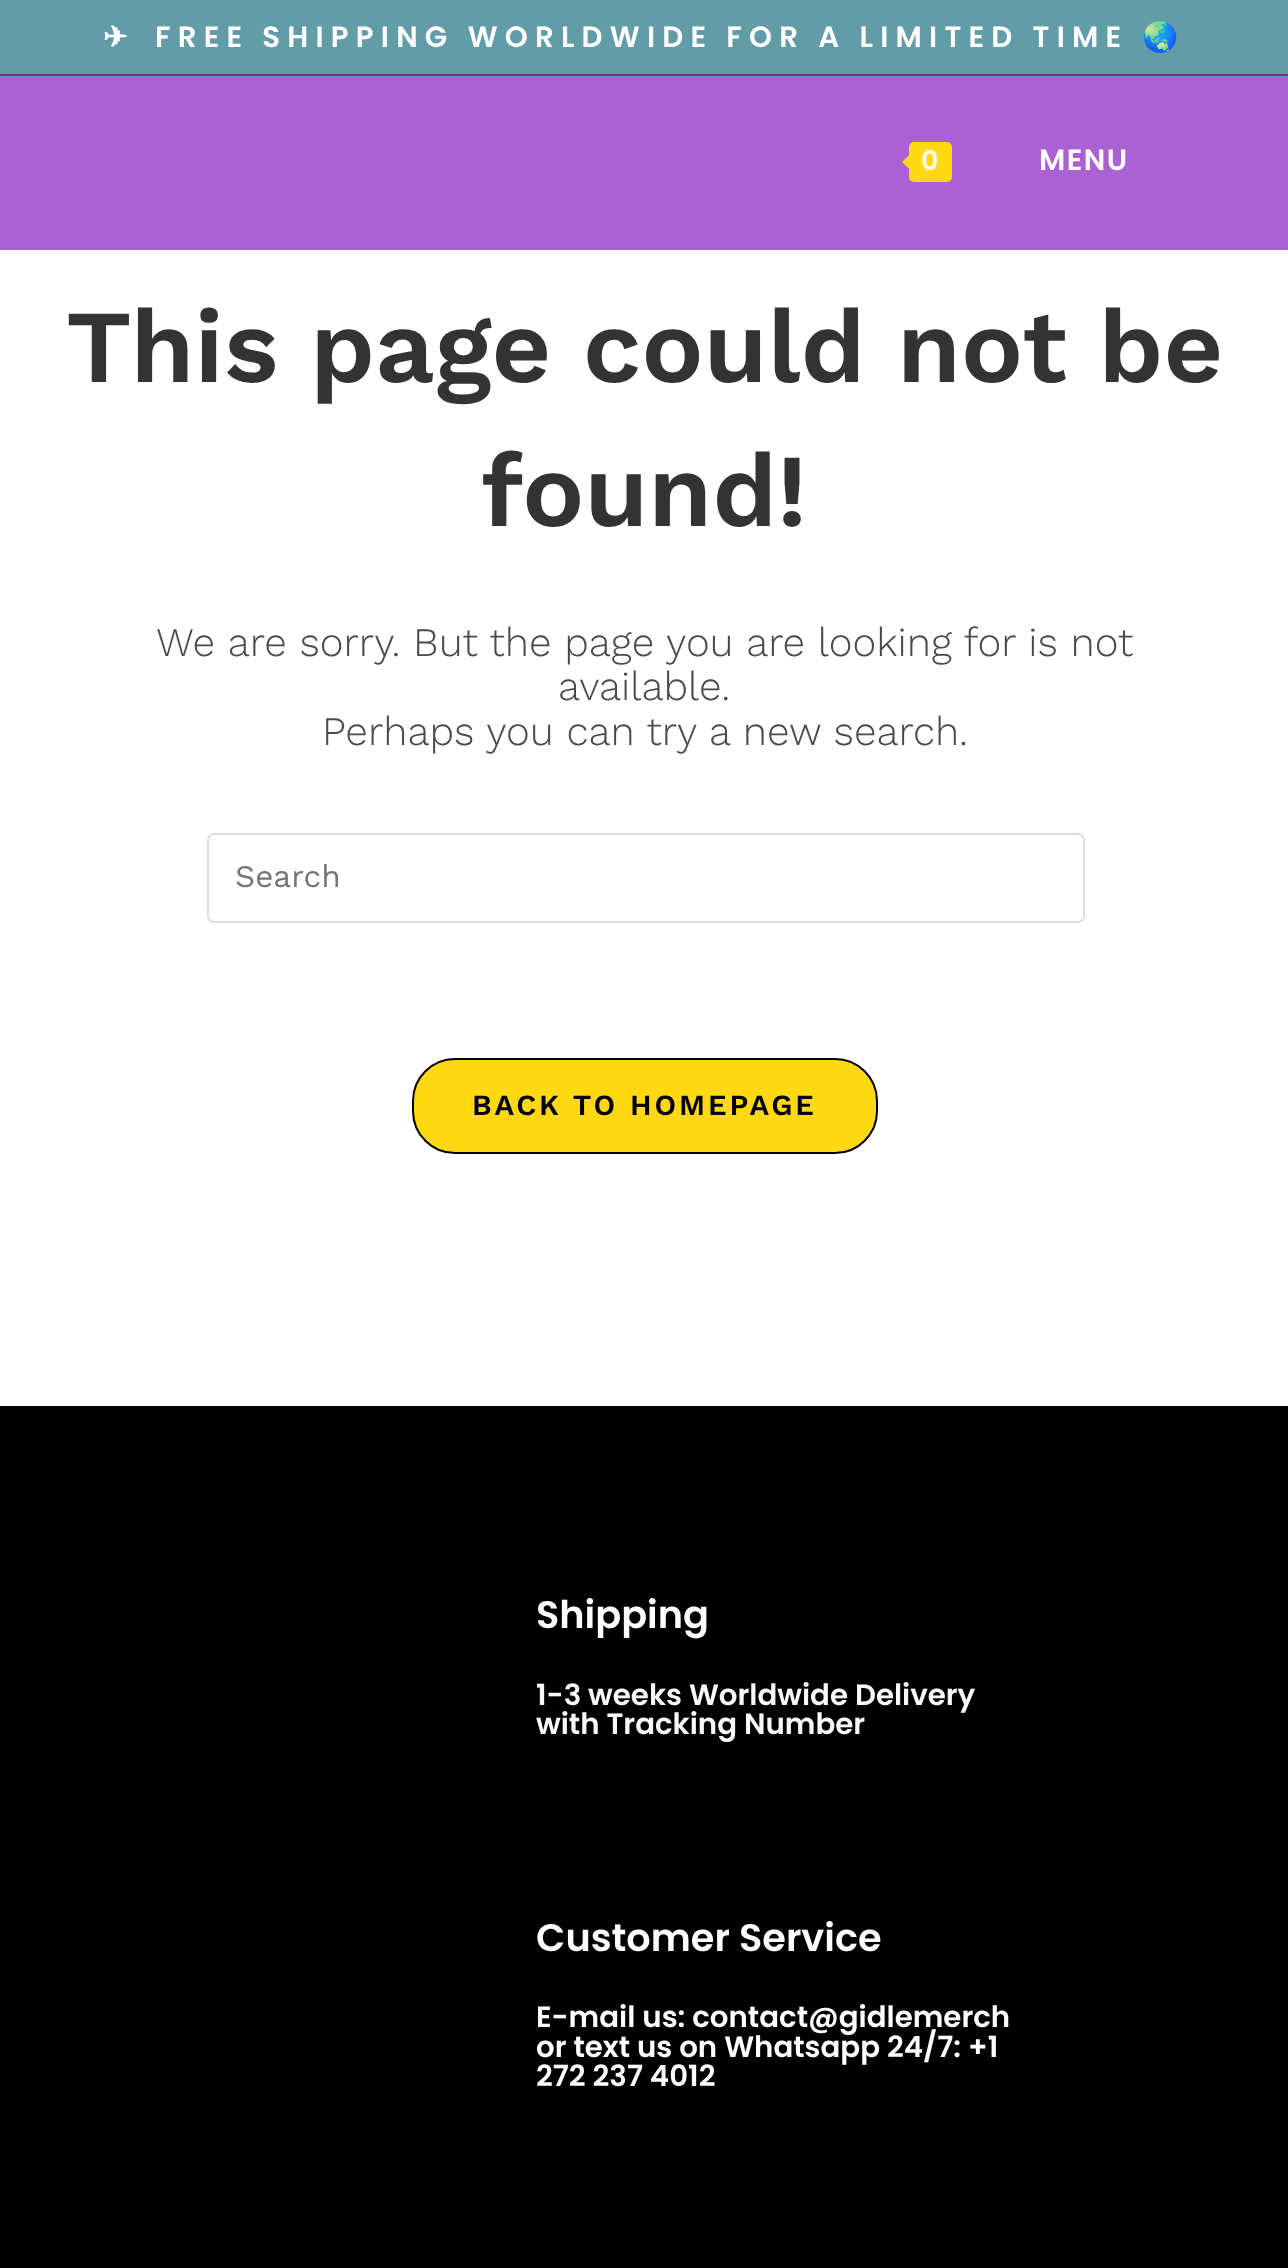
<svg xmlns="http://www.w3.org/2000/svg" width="1288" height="2268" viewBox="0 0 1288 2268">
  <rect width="100%" height="100%" fill="rgb(255,255,255)"/>
  <rect x="0" y="0" width="1288" height="77" fill="rgb(98,156,167)"/>
  <rect x="0" y="74" width="1288" height="2" fill="rgb(83,62,134)"/>
  <text x="103" y="47" font-family="DejaVu Sans" font-size="29.25" font-weight="bold" letter-spacing="7.2" fill="rgb(255,253,253)">✈︎</text>
  <text x="155" y="47" word-spacing="-1" font-family="Poppins" font-size="29.25" font-weight="600" letter-spacing="7.2" fill="rgb(255,253,253)">FREE SHIPPING WORLDWIDE FOR A LIMITED TIME</text>
  <text x="1142" y="47" font-family="Noto Color Emoji" font-size="29.25" font-weight="bold" letter-spacing="7.2" fill="rgb(255,253,253)">🌏</text>
  <rect x="0" y="77" width="1288" height="173" fill="rgb(170,97,212)"/>
  <rect x="909" y="142" width="43" height="40" rx="5" fill="rgb(255,216,20)"/>
  <path d="M913.5 151V173L902 162Z" fill="rgb(255,216,20)"/>
  <text x="921" y="170" font-family="Poppins" font-size="27" font-weight="600" letter-spacing="1.5" fill="rgb(255,253,253)">0</text>
  <text x="1039" y="170" font-family="Poppins" font-size="29.25" font-weight="600" letter-spacing="1.5" fill="rgb(255,253,253)">MENU</text>
  <g font-family="Work Sans" font-size="103.5" font-weight="600" fill="rgb(51,51,51)">
    <text x="66" y="382">This page could not be</text>
    <text x="481" y="526">found!</text>
  </g>
  <g font-family="Work Sans" font-size="40.5" font-weight="300" fill="rgb(74,74,74)">
    <text x="156" y="656">We are sorry. But the page you are looking for is not</text>
    <text x="558" y="700">available.</text>
    <text x="322" y="745">Perhaps you can try a new search.</text>
  </g>
  <rect x="208" y="834" width="876" height="88" rx="6" fill="none" stroke="rgb(221,221,221)" stroke-width="2"/>
  <text x="235" y="887" font-family="Work Sans" font-size="31.5" fill="rgb(117,117,117)">Search</text>
  <rect x="413" y="1059" width="464" height="94" rx="42" fill="rgb(255,216,20)" stroke="rgb(0,0,0)" stroke-width="2"/>
  <text x="472" y="1115" font-family="Work Sans" font-size="29.25" font-weight="600" letter-spacing="2.9" fill="rgb(0,0,0)">BACK TO HOMEPAGE</text>
  <rect x="0" y="1406" width="1288" height="862" fill="rgb(0,0,0)"/>
  <text x="536" y="1628" font-family="Poppins" font-size="38.25" font-weight="600" fill="rgb(255,253,253)">Shipping</text>
  <g font-family="Poppins" font-size="29.25" font-weight="600" fill="rgb(249,249,249)">
    <text>
      <tspan x="536" y="1705">1-3 weeks Worldwide Delivery</tspan>
      <tspan x="536" y="1734">with Tracking Number</tspan>
    </text>
  </g>
  <text x="536" y="1951" font-family="Poppins" font-size="38.25" font-weight="600" fill="rgb(255,253,253)">Customer Service</text>
  <g font-family="Poppins" font-size="29.25" font-weight="600" fill="rgb(255,253,253)">
    <text>
      <tspan x="536" y="2027">E-mail us: contact@gidlemerch</tspan>
      <tspan x="536" y="2057">or text us on Whatsapp 24/7: +1</tspan>
      <tspan x="536" y="2086">272 237 4012</tspan>
    </text>
  </g>
</svg>
